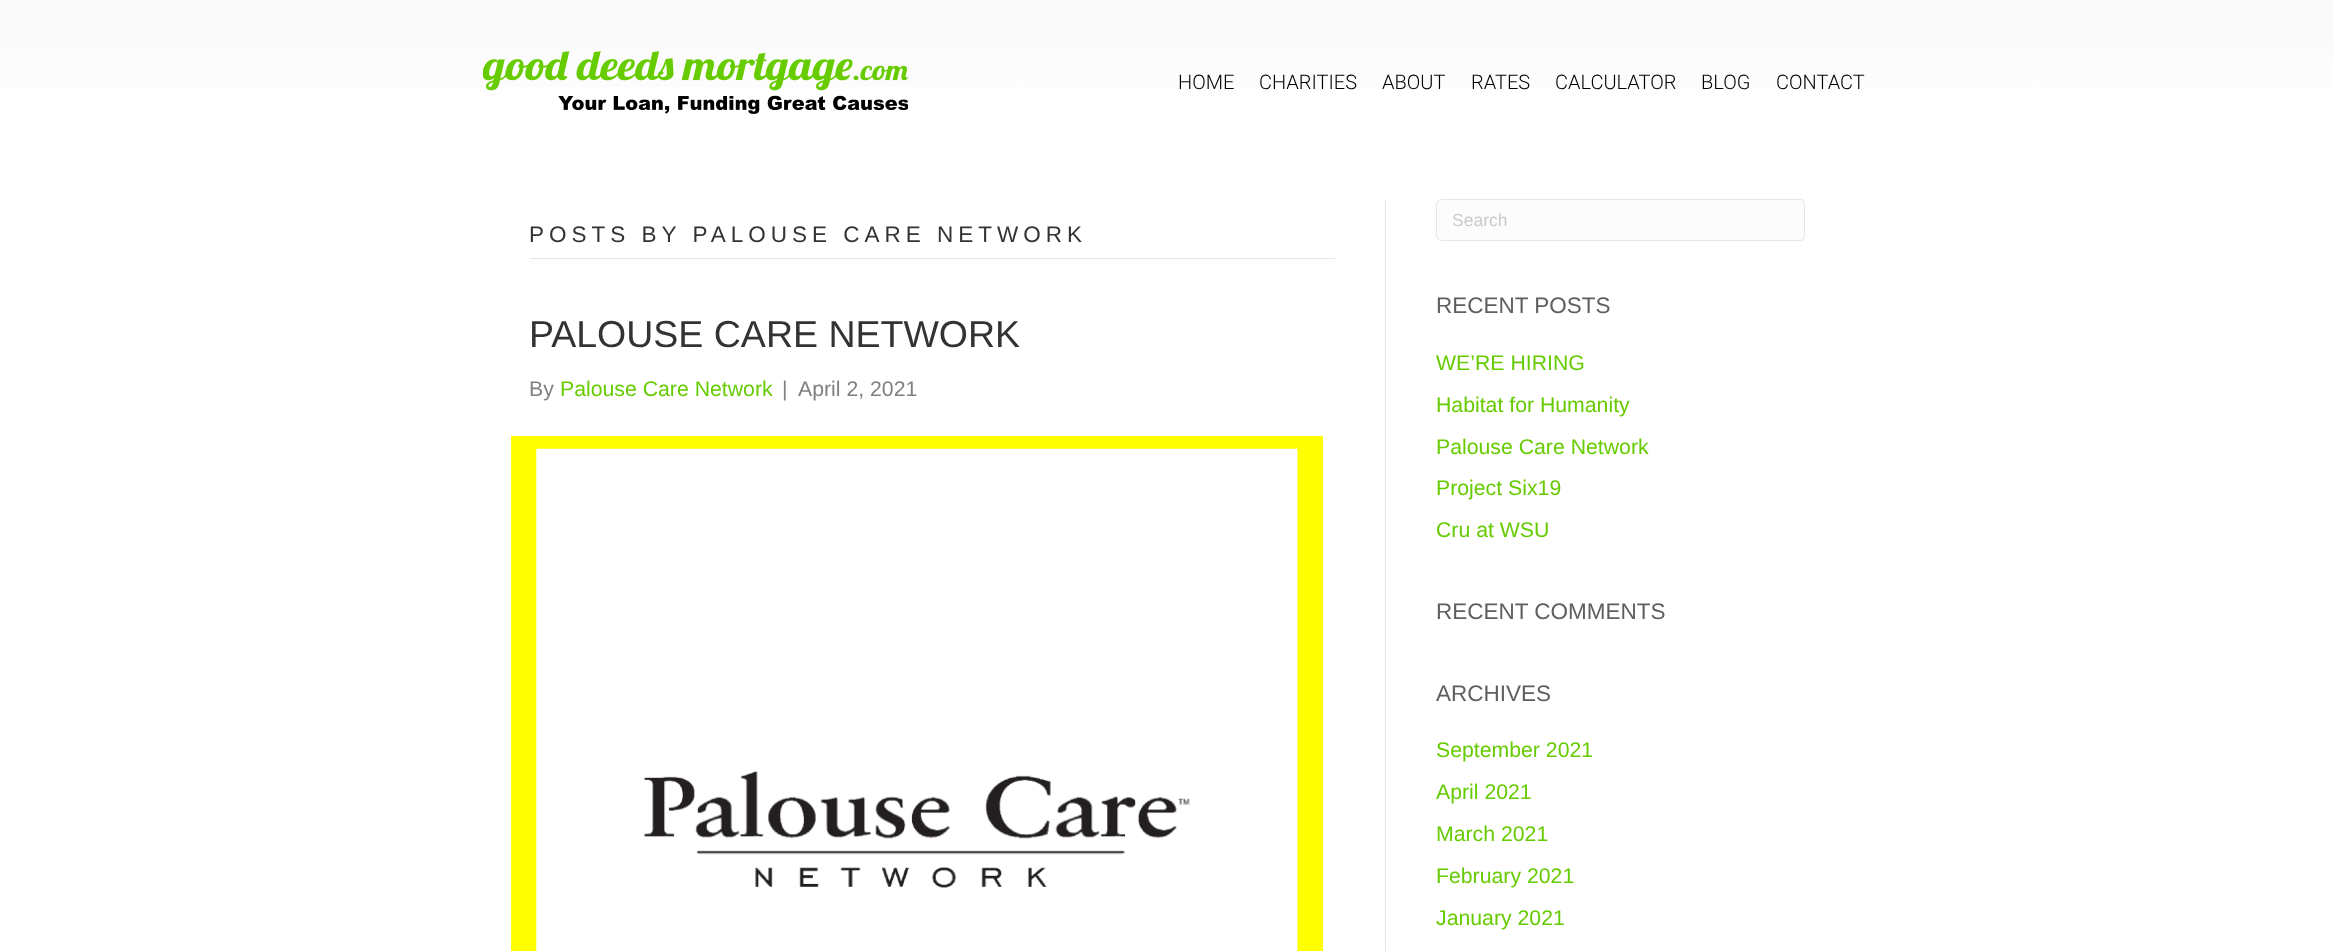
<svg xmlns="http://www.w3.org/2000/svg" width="2333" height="951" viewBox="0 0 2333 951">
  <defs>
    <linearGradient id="g1" gradientUnits="userSpaceOnUse" x1="1167" y1="149" x2="1167" y2="0"><stop offset="0" stop-color="rgb(255,255,255)"/><stop offset="1" stop-color="rgb(249,249,249)"/></linearGradient>
  </defs>
  <rect width="100%" height="100%" fill="rgb(255,255,255)"/>
  <rect x="0" y="0" width="2333" height="87" fill="url(#g1)"/>
  <image x="483" y="51" width="425" height="63" href="pic1.png"/>
  <g font-family="Roboto" font-size="20" font-weight="300" fill="rgb(0,0,0)">
    <text x="1178" y="89">HOME</text>
    <text x="1259" y="89">CHARITIES</text>
    <text x="1382" y="89">ABOUT</text>
    <text x="1471" y="89">RATES</text>
    <text x="1555" y="89">CALCULATOR</text>
    <text x="1701" y="89">BLOG</text>
    <text x="1776" y="89">CONTACT</text>
  </g>
  <rect x="1385" y="199" width="1" height="752" fill="rgb(230,230,230)"/>
  <rect x="530" y="258" width="805" height="1" fill="rgb(230,230,230)"/>
  <text x="529" y="242" font-family="Liberation Sans" font-size="22.5" letter-spacing="5" fill="rgb(51,51,51)">POSTS BY PALOUSE CARE NETWORK</text>
  <text x="529" y="347" font-family="Liberation Sans" font-size="37.5" fill="rgb(51,51,51)">PALOUSE CARE NETWORK</text>
  <text x="529" y="396" font-family="Liberation Sans" font-size="21.25" fill="rgb(128,128,128)">By</text>
  <text x="560" y="396" font-family="Liberation Sans" font-size="21.25" fill="rgb(102,203,0)">Palouse Care Network</text>
  <g font-family="Liberation Sans" font-size="21.25" fill="rgb(128,128,128)">
    <text x="782" y="396">|</text>
    <text x="798" y="396">April 2, 2021</text>
  </g>
  <rect x="511" y="436" width="812" height="515" fill="rgb(255,255,0)"/>
  <image x="536" y="448" width="762" height="503" href="pic2.png"/>
  <rect x="1436.5" y="199.5" width="368" height="41" rx="4.5" fill="rgb(252,252,252)" stroke="rgb(230,230,230)"/>
  <text x="1452" y="226" font-family="Liberation Sans" font-size="17.5" fill="rgb(202,202,202)">Search</text>
  <text x="1436" y="313" font-family="Liberation Sans" font-size="22.5" fill="rgb(96,94,94)">RECENT POSTS</text>
  <g font-family="Liberation Sans" font-size="21.25" fill="rgb(102,203,0)">
    <text>
      <tspan x="1436" y="370">WE’RE HIRING</tspan>
      <tspan x="1436" y="412">Habitat for Humanity</tspan>
      <tspan x="1436" y="454">Palouse Care Network</tspan>
      <tspan x="1436" y="495">Project Six19</tspan>
      <tspan x="1436" y="537">Cru at WSU</tspan>
    </text>
  </g>
  <g font-family="Liberation Sans" font-size="22.5" fill="rgb(96,94,94)">
    <text x="1436" y="619">RECENT COMMENTS</text>
    <text x="1436" y="701">ARCHIVES</text>
  </g>
  <g font-family="Liberation Sans" font-size="21.25" fill="rgb(102,203,0)">
    <text>
      <tspan x="1436" y="757">September 2021</tspan>
      <tspan x="1436" y="799">April 2021</tspan>
      <tspan x="1436" y="841">March 2021</tspan>
      <tspan x="1436" y="883">February 2021</tspan>
      <tspan x="1436" y="925">January 2021</tspan>
    </text>
  </g>
</svg>
